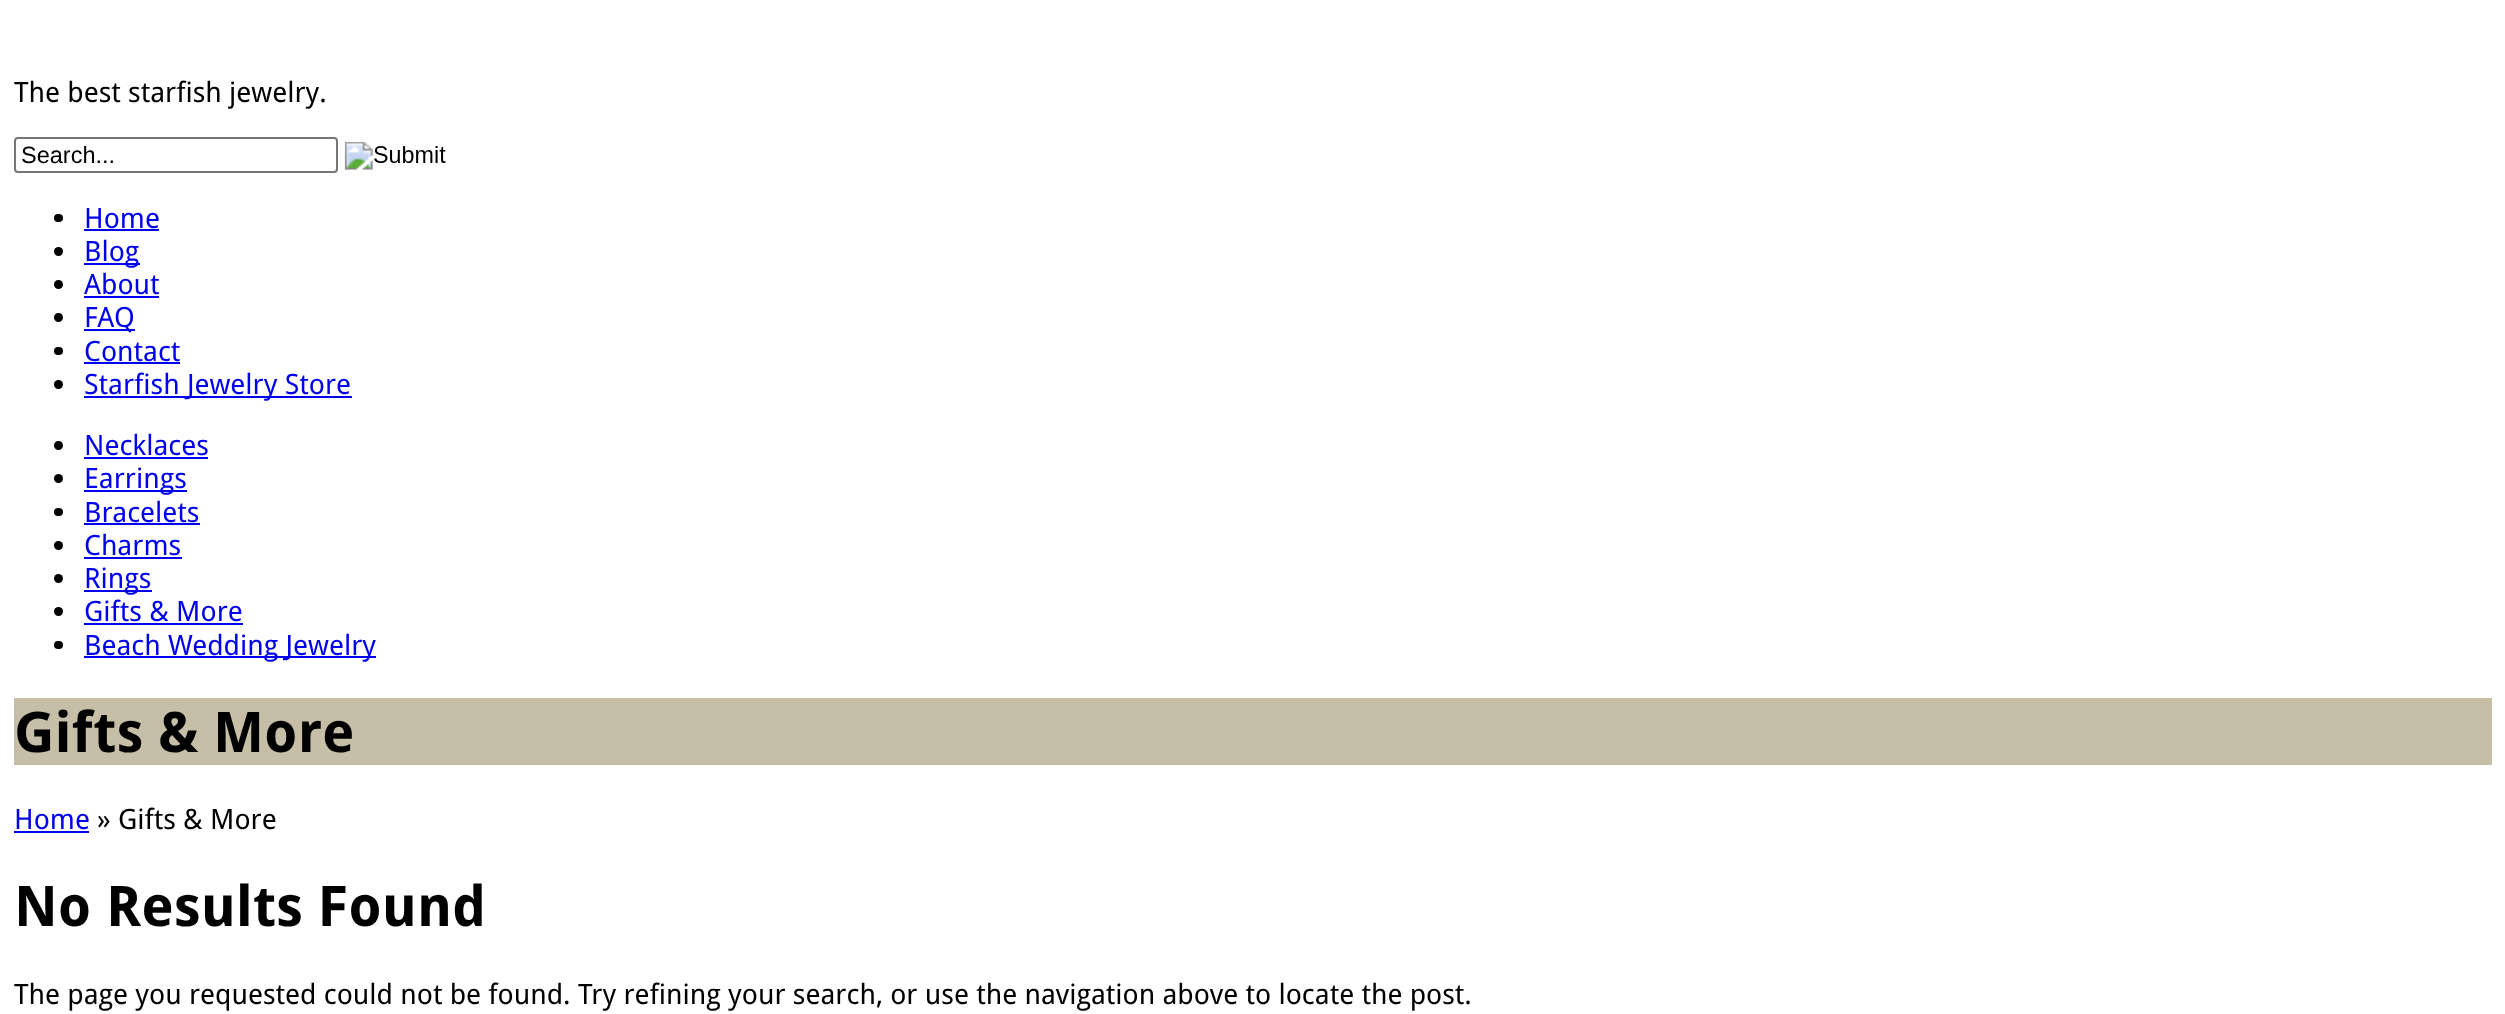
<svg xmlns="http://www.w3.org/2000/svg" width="2505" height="1014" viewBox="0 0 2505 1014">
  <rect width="100%" height="100%" fill="rgb(255,255,255)"/>
  <text x="14" y="102" font-family="Droid Sans" font-size="28" fill="rgb(0,0,0)">The best starfish jewelry.</text>
  <rect x="15" y="138" width="322" height="34" rx="3" fill="none" stroke="rgb(118,118,118)" stroke-width="2"/>
  <text x="21" y="163" font-family="Liberation Sans" font-size="23.5" fill="rgb(0,0,0)">Search...</text>
  <image x="344" y="141" width="102" height="29" href="pic1.png"/>
  <rect x="54" y="214" width="9" height="8" rx="4" fill="rgb(0,0,0)"/>
  <text x="84" y="228" font-family="Droid Sans" font-size="28" fill="rgb(0,0,238)">Home</text>
  <rect x="84" y="229" width="75" height="2" fill="rgb(0,0,238)"/>
  <circle cx="58.5" cy="251.5" r="4.5" fill="rgb(0,0,0)"/>
  <rect x="84" y="263" width="56" height="2" fill="rgb(0,0,238)"/>
  <text x="84" y="261" font-family="Droid Sans" font-size="28" fill="rgb(0,0,238)">Blog</text>
  <circle cx="58.5" cy="284.5" r="4.5" fill="rgb(0,0,0)"/>
  <text x="84" y="294" font-family="Droid Sans" font-size="28" fill="rgb(0,0,238)">About</text>
  <rect x="84" y="296" width="75" height="2" fill="rgb(0,0,238)"/>
  <circle cx="58.5" cy="317.5" r="4.5" fill="rgb(0,0,0)"/>
  <rect x="84" y="329" width="51" height="2" fill="rgb(0,0,238)"/>
  <text x="84" y="327" font-family="Droid Sans" font-size="28" fill="rgb(0,0,238)">FAQ</text>
  <rect x="54" y="347" width="9" height="8" rx="4" fill="rgb(0,0,0)"/>
  <text x="84" y="361" font-family="Droid Sans" font-size="28" fill="rgb(0,0,238)">Contact</text>
  <rect x="84" y="362" width="96" height="2" fill="rgb(0,0,238)"/>
  <circle cx="58.5" cy="384.5" r="4.5" fill="rgb(0,0,0)"/>
  <rect x="84" y="396" width="268" height="2" fill="rgb(0,0,238)"/>
  <text x="84" y="394" font-family="Droid Sans" font-size="28" fill="rgb(0,0,238)">Starfish Jewelry Store</text>
  <circle cx="58.5" cy="445.5" r="4.5" fill="rgb(0,0,0)"/>
  <text x="84" y="455" font-family="Droid Sans" font-size="28" fill="rgb(0,0,238)">Necklaces</text>
  <rect x="84" y="457" width="124" height="2" fill="rgb(0,0,238)"/>
  <circle cx="58.5" cy="478.5" r="4.5" fill="rgb(0,0,0)"/>
  <rect x="84" y="490" width="103" height="2" fill="rgb(0,0,238)"/>
  <text x="84" y="488" font-family="Droid Sans" font-size="28" fill="rgb(0,0,238)">Earrings</text>
  <rect x="54" y="508" width="9" height="8" rx="4" fill="rgb(0,0,0)"/>
  <text x="84" y="522" font-family="Droid Sans" font-size="28" fill="rgb(0,0,238)">Bracelets</text>
  <rect x="84" y="523" width="116" height="2" fill="rgb(0,0,238)"/>
  <circle cx="58.5" cy="545.5" r="4.5" fill="rgb(0,0,0)"/>
  <text x="84" y="555" font-family="Droid Sans" font-size="28" fill="rgb(0,0,238)">Charms</text>
  <rect x="84" y="557" width="98" height="2" fill="rgb(0,0,238)"/>
  <circle cx="58.5" cy="578.5" r="4.5" fill="rgb(0,0,0)"/>
  <rect x="84" y="590" width="68" height="2" fill="rgb(0,0,238)"/>
  <text x="84" y="588" font-family="Droid Sans" font-size="28" fill="rgb(0,0,238)">Rings</text>
  <circle cx="58.5" cy="611.5" r="4.5" fill="rgb(0,0,0)"/>
  <text x="84" y="621" font-family="Droid Sans" font-size="28" fill="rgb(0,0,238)">Gifts &amp; More</text>
  <rect x="84" y="623" width="159" height="2" fill="rgb(0,0,238)"/>
  <rect x="54" y="641" width="9" height="8" rx="4" fill="rgb(0,0,0)"/>
  <rect x="84" y="656" width="292" height="2" fill="rgb(0,0,238)"/>
  <text x="84" y="655" font-family="Droid Sans" font-size="28" fill="rgb(0,0,238)">Beach Wedding Jewelry</text>
  <rect x="14" y="698" width="2478" height="67" fill="rgb(198,190,166)"/>
  <text x="14" y="752" font-family="Droid Sans" font-size="56" font-weight="bold" fill="rgb(0,0,0)">Gifts &amp; More</text>
  <text x="14" y="829" font-family="Droid Sans" font-size="28" fill="rgb(0,0,238)">Home</text>
  <rect x="14" y="831" width="75" height="2" fill="rgb(0,0,238)"/>
  <text x="97" y="829" font-family="Droid Sans" font-size="28" fill="rgb(0,0,0)">» Gifts &amp; More</text>
  <text x="14" y="926" font-family="Droid Sans" font-size="56" font-weight="bold" fill="rgb(0,0,0)">No Results Found</text>
  <text x="14" y="1004" font-family="Droid Sans" font-size="28" fill="rgb(0,0,0)">The page you requested could not be found. Try refining your search, or use the navigation above to locate the post.</text>
</svg>
